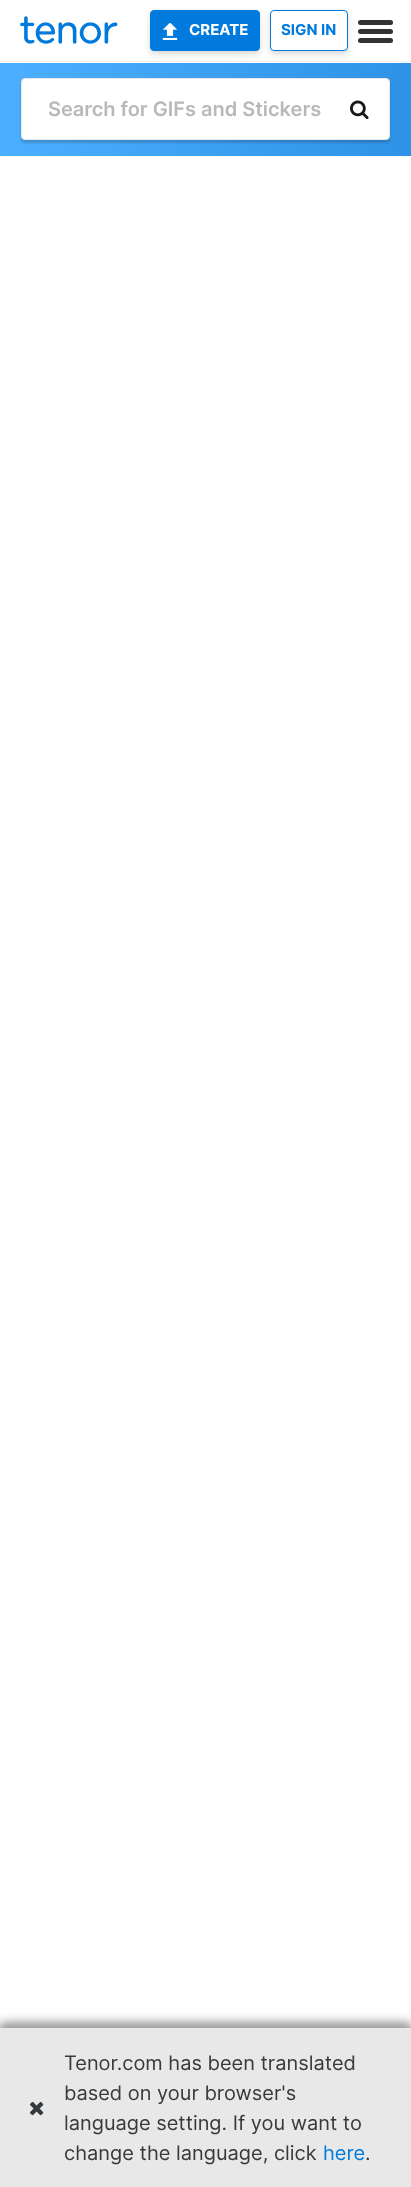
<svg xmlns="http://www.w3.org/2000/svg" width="411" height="2187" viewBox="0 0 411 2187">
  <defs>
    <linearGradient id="g1" gradientUnits="userSpaceOnUse" x1="0" y1="109" x2="411" y2="109"><stop offset="0" stop-color="rgb(76,175,255)"/><stop offset="1" stop-color="rgb(46,147,230)"/></linearGradient>
  </defs>
  <rect width="100%" height="100%" fill="rgb(255,255,255)"/>
  <rect x="0" y="61" width="411" height="1" fill="rgb(235,242,247)"/>
  <image x="20" y="16" width="98" height="28" href="pic1.png"/>
  <rect x="150" y="15" width="110" height="41" rx="4" fill="rgba(83,83,92,0.11)" filter="blur(4px)"/>
  <rect x="150" y="11" width="110" height="42" rx="4" fill="rgba(0,0,0,0.08)" filter="blur(2px)"/>
  <rect x="150.5" y="10.5" width="109" height="40" rx="3.5" fill="rgb(0,122,221)" stroke="rgb(0,122,221)"/>
  <image x="162" y="23" width="16" height="17" href="pic2.png"/>
  <text x="189" y="35" font-family="Inter" font-size="15" font-weight="bold" fill="rgb(255,255,255)">CREATE</text>
  <rect x="270" y="15" width="78" height="41" rx="4" fill="rgba(83,83,92,0.11)" filter="blur(4px)"/>
  <rect x="270" y="11" width="78" height="42" rx="4" fill="rgba(0,0,0,0.08)" filter="blur(2px)"/>
  <rect x="270.5" y="10.5" width="77" height="40" rx="3.5" fill="rgb(255,255,255)" stroke="rgb(0,122,221)"/>
  <text x="281" y="35" font-family="Inter" font-size="15" font-weight="bold" fill="rgb(0,122,221)">SIGN IN</text>
  <rect x="358" y="29" width="35" height="5" rx="2.5" fill="rgb(51,51,51)"/>
  <rect x="358" y="20" width="35" height="5" rx="2.5" fill="rgb(51,51,51)"/>
  <rect x="358" y="38" width="35" height="5" rx="2.5" fill="rgb(51,51,51)"/>
  <rect x="0" y="63" width="411" height="93" fill="url(#g1)"/>
  <rect x="21" y="78" width="369" height="62" rx="4" fill="rgba(0,0,0,0.08)" filter="blur(0.5px)"/>
  <rect x="21" y="80" width="369" height="63" rx="4" fill="rgba(0,0,0,0.16)" filter="blur(1px)"/>
  <rect x="21.5" y="78.5" width="368" height="61" rx="3.5" fill="rgb(255,255,255)" stroke="rgb(232,232,232)"/>
  <text x="48" y="116" font-family="Inter" font-size="20" font-weight="600" fill="rgb(185,185,185)">Search for GIFs and Stickers</text>
  <image x="350" y="100" width="19" height="20" href="pic3.png"/>
  <rect x="0" y="2025" width="411" height="160" fill="rgb(153,153,153)" filter="blur(6px)"/>
  <rect x="0" y="2025" width="411" height="160" fill="rgb(153,153,153)" filter="blur(6px)"/>
  <rect x="0" y="2028" width="411" height="159" fill="rgb(232,232,232)"/>
  <image x="30" y="2101" width="14" height="15" href="pic4.png"/>
  <g font-family="Inter" font-size="20" fill="rgb(55,58,60)">
    <text>
      <tspan x="64" y="2070">Tenor.com has been translated</tspan>
      <tspan x="64" y="2100">based on your browser's</tspan>
      <tspan x="64" y="2130">language setting. If you want to</tspan>
      <tspan x="64" y="2160">change the language, click</tspan>
    </text>
  </g>
  <text x="323" y="2160" font-family="Inter" font-size="20" fill="rgb(0,122,221)">here</text>
  <text x="365" y="2160" font-family="Inter" font-size="20" fill="rgb(55,58,60)">.</text>
</svg>
